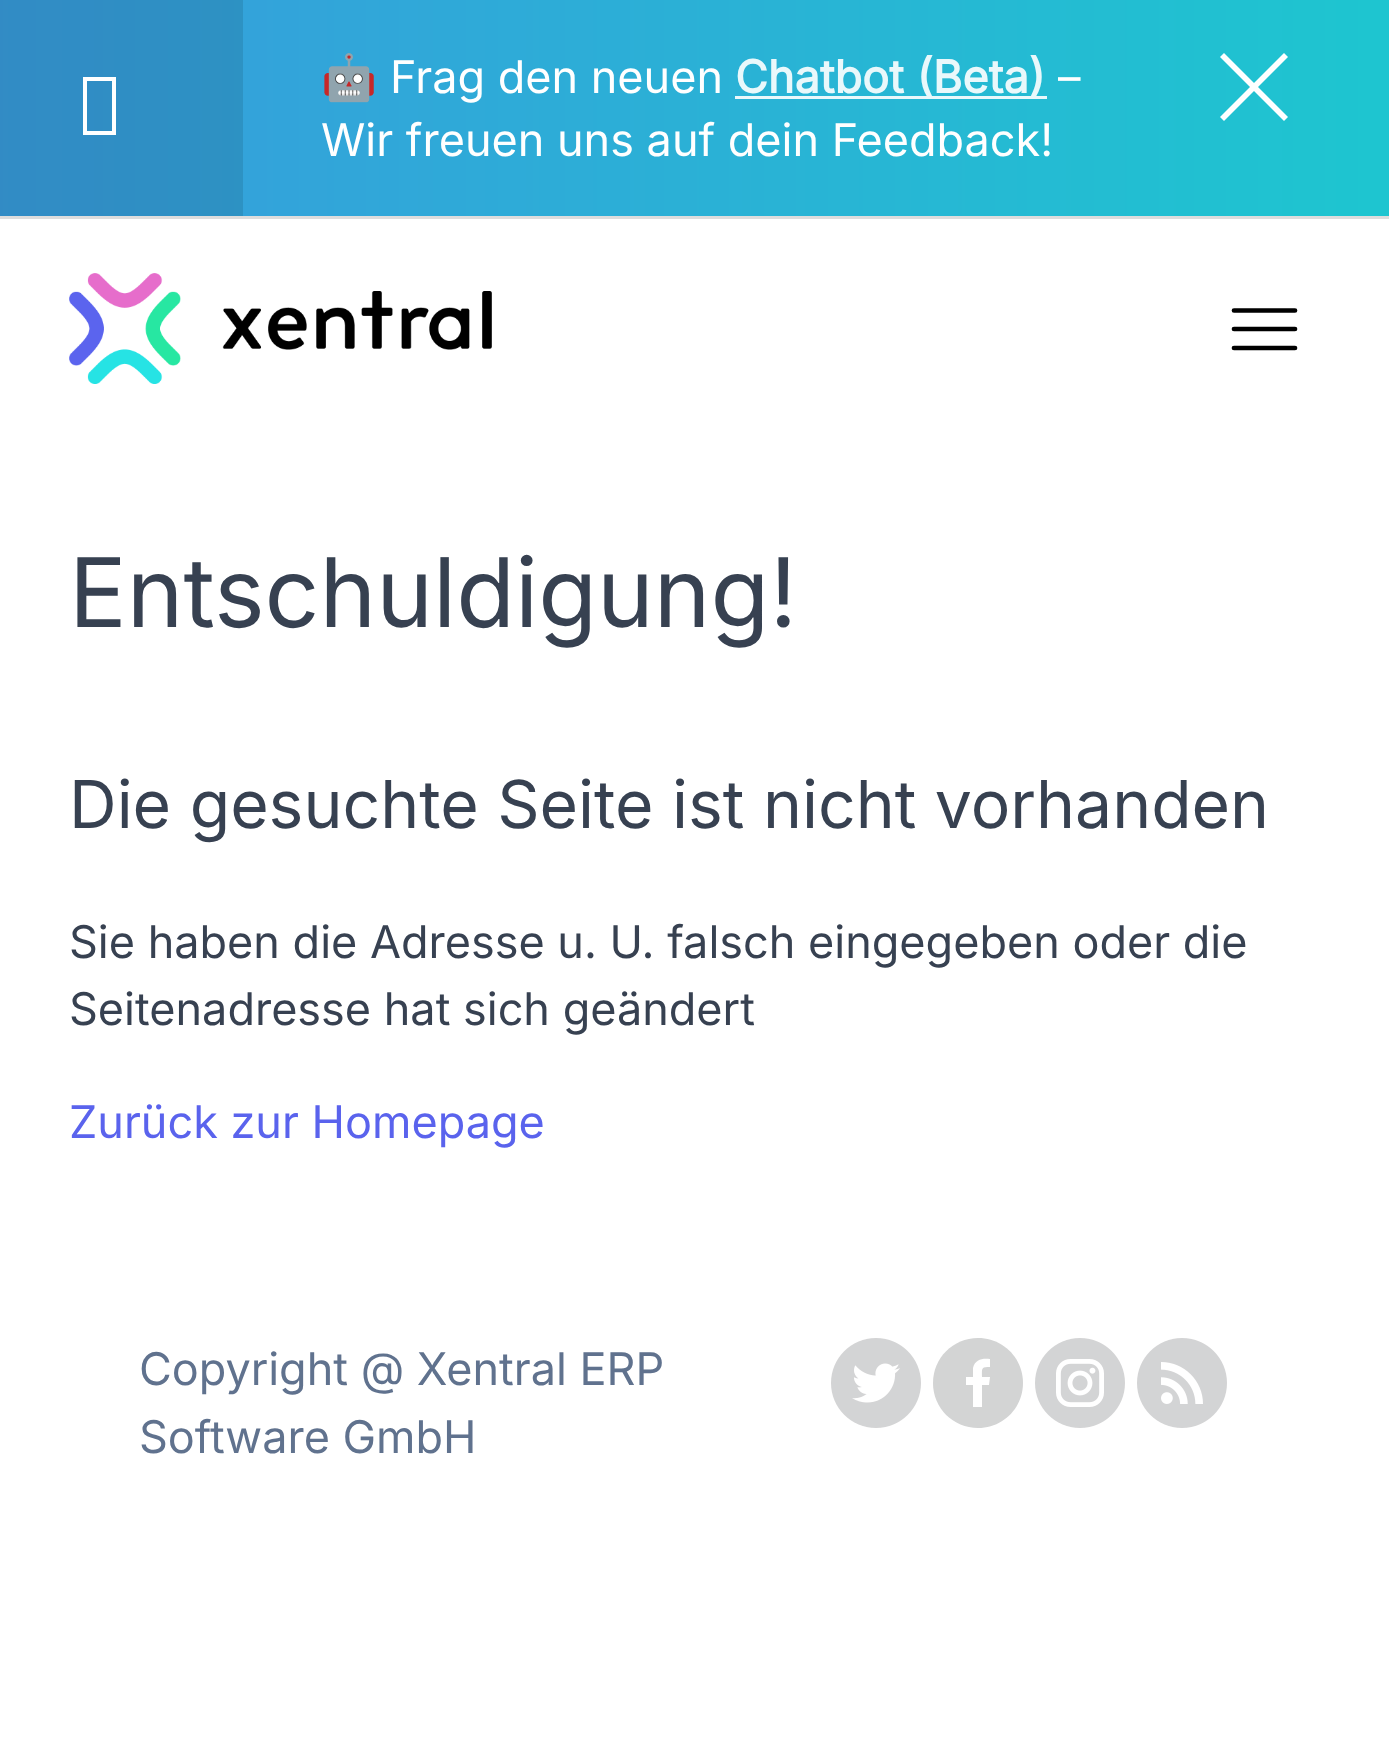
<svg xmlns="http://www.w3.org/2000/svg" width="1389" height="1739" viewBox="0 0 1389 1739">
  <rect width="100%" height="100%" fill="rgb(255,255,255)"/>
  <image x="0" y="0" width="1389" height="216" href="pic1.png"/>
  <rect x="0" y="0" width="243" height="216" fill="rgba(0,0,0,0.1)"/>
  <rect x="0" y="216" width="1389" height="3" fill="rgb(221,221,221)"/>
  <path d="M83 135V77H116V135ZM87 131H112V81H87Z" fill="rgb(255,255,255)"/>
  <text x="321" y="93" font-family="Noto Color Emoji" font-size="45" fill="rgb(255,255,255)">🤖</text>
  <text x="390" y="93" font-family="Inter" font-size="45" fill="rgb(255,255,255)">Frag den neuen</text>
  <rect x="735" y="96" width="312" height="3" fill="rgba(255,255,255,0.9)"/>
  <text x="735" y="93" font-family="Inter" font-size="45" font-weight="bold" fill="rgb(233,248,251)">Chatbot (Beta)</text>
  <g font-family="Inter" font-size="45" fill="rgb(255,255,255)">
    <text x="1058" y="93">–</text>
    <text x="321" y="156">Wir freuen uns auf dein Feedback!</text>
  </g>
  <path d="M1284 53L1288 57L1224 121L1220 117Z" fill="rgb(255,255,255)"/>
  <path d="M1220 57L1224 53L1288 117L1284 121Z" fill="rgb(255,255,255)"/>
  <image x="69" y="273" width="423" height="111" href="pic2.png"/>
  <path d="M1234 310.5H1295M1234 329H1295M1234 348H1295" fill="none" stroke="rgb(0,0,0)" stroke-width="4.7" stroke-linecap="round"/>
  <text x="69" y="627" font-family="Inter" font-size="96" fill="rgb(55,65,81)">Entschuldigung!</text>
  <text x="69" y="828" font-family="Inter" font-size="66" fill="rgb(55,65,81)">Die gesuchte Seite ist nicht vorhanden</text>
  <g font-family="Inter" font-size="45" fill="rgb(55,65,81)">
    <text>
      <tspan x="69" y="958">Sie haben die Adresse u. U. falsch eingegeben oder die</tspan>
      <tspan x="69" y="1025">Seitenadresse hat sich geändert</tspan>
    </text>
  </g>
  <text x="69" y="1138" font-family="Inter" font-size="45" fill="rgb(90,99,237)">Zurück zur Homepage</text>
  <g font-family="Inter" font-size="45" fill="rgb(96,114,142)">
    <text>
      <tspan x="139" y="1385">Copyright @ Xentral ERP</tspan>
      <tspan x="139" y="1453">Software GmbH</tspan>
    </text>
  </g>
  <image x="831" y="1338" width="90" height="90" href="pic3.png"/>
  <path d="M978 1428C1003 1428 1023 1408 1023 1383C1023 1358 1003 1338 978 1338C953 1338 933 1358 933 1383C933 1408 953 1428 978 1428Z" fill="rgb(211,212,212)" fill-rule="evenodd"/>
  <image x="1035" y="1338" width="90" height="90" href="pic4.png"/>
  <image x="1137" y="1338" width="90" height="90" href="pic5.png"/>
  <path d="M982 1407V1385H989L990 1377H982C982 1368 981 1367 990 1367V1359C983 1358 975 1359 973 1368V1377H966V1385H973V1407Z" fill="rgb(255,255,255)"/>
</svg>
